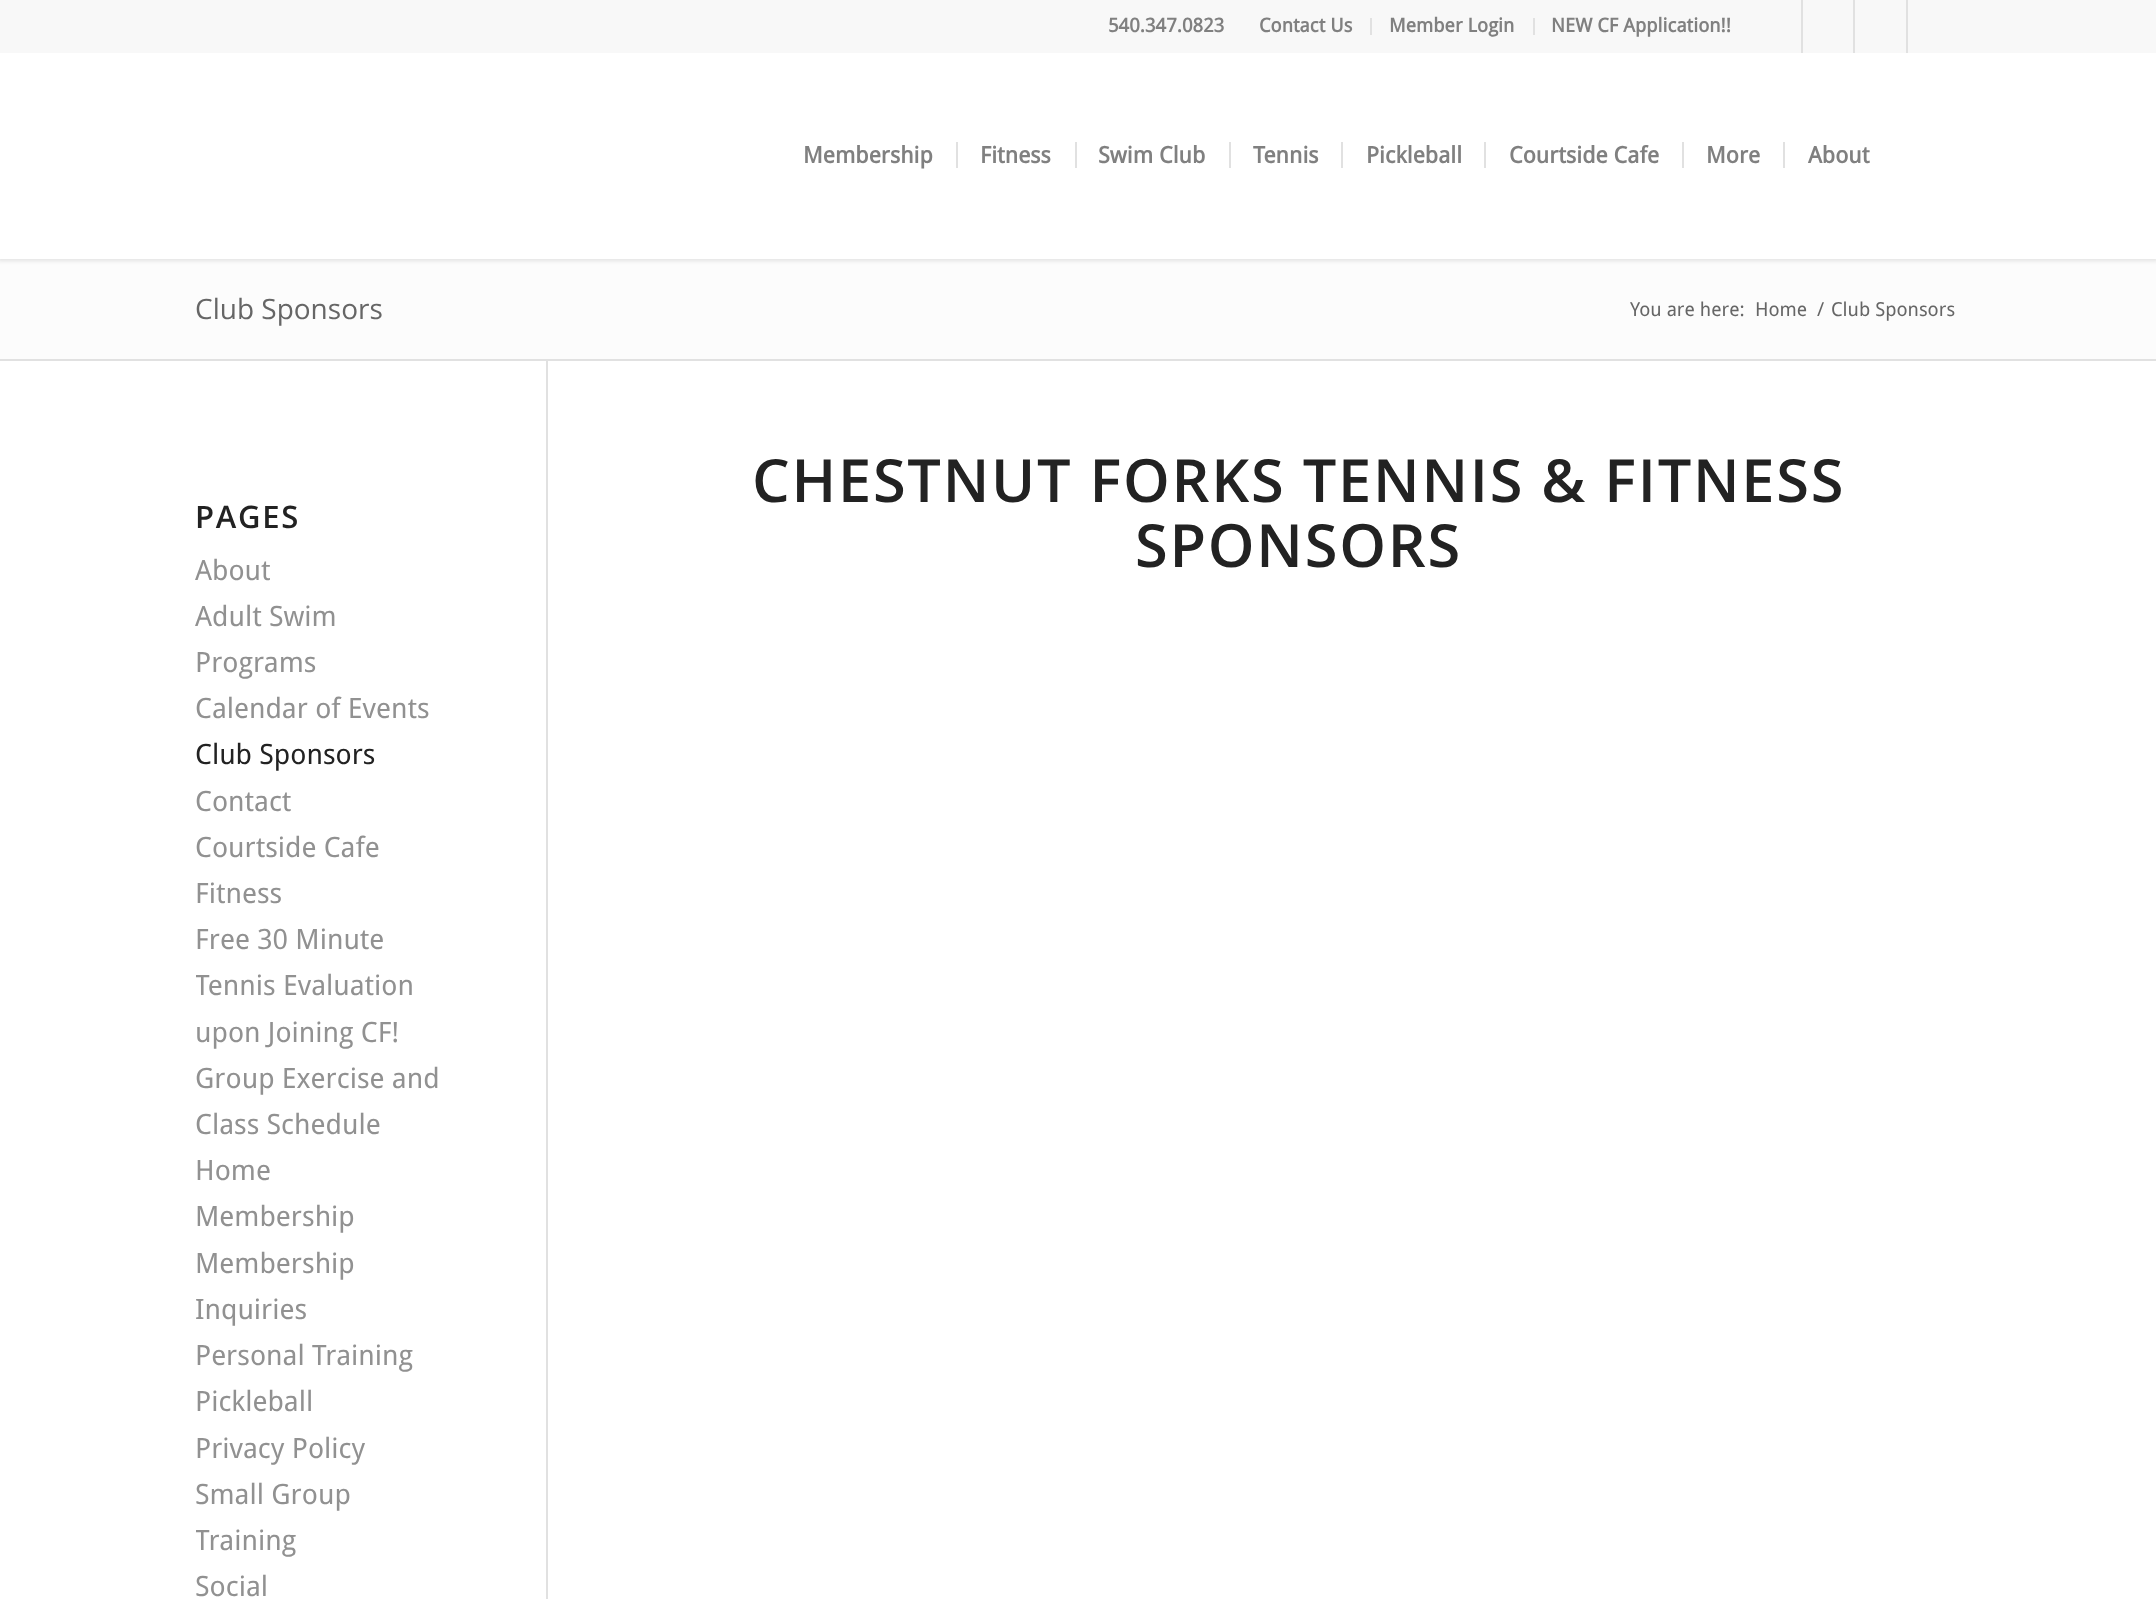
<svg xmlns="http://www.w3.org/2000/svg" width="2156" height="1599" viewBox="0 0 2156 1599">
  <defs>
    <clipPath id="clip1"><rect x="196" y="361" width="350" height="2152"/></clipPath>
  </defs>
  <rect width="100%" height="100%" fill="rgb(255,255,255)"/>
  <rect x="0" y="259" width="2156" height="100" fill="rgb(252,252,252)"/>
  <rect x="-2" y="-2" width="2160" height="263" fill="rgba(0,0,0,0.1)" filter="blur(2px)"/>
  <rect x="0" y="0" width="2156" height="53" fill="rgb(248,248,248)"/>
  <text x="1108" y="32" font-family="Droid Sans" font-size="19.25" font-weight="bold" fill="rgb(128,128,128)">540.347.0823</text>
  <rect x="1370" y="18" width="2" height="17" fill="rgb(225,225,225)"/>
  <text x="1259" y="32" font-family="Droid Sans" font-size="19.25" font-weight="bold" fill="rgb(128,128,128)">Contact Us</text>
  <rect x="1533" y="18" width="2" height="17" fill="rgb(225,225,225)"/>
  <g font-family="Droid Sans" font-size="19.25" font-weight="bold" fill="rgb(128,128,128)">
    <text x="1389" y="32">Member Login</text>
    <text x="1551" y="32">NEW CF Application!!</text>
  </g>
  <rect x="1801" y="0" width="2" height="53" fill="rgb(225,225,225)"/>
  <rect x="1853" y="0" width="2" height="53" fill="rgb(225,225,225)"/>
  <rect x="1906" y="0" width="2" height="53" fill="rgb(225,225,225)"/>
  <rect x="0" y="53" width="2156" height="206" fill="rgb(255,255,255)"/>
  <g font-family="Droid Sans" font-size="22.75" font-weight="bold" fill="rgb(128,128,128)">
    <text x="803" y="163">Membership</text>
    <text x="980" y="163">Fitness</text>
  </g>
  <rect x="956" y="142" width="2" height="26" fill="rgb(225,225,225)"/>
  <text x="1098" y="163" font-family="Droid Sans" font-size="22.75" font-weight="bold" fill="rgb(128,128,128)">Swim Club</text>
  <rect x="1075" y="142" width="2" height="26" fill="rgb(225,225,225)"/>
  <text x="1253" y="163" font-family="Droid Sans" font-size="22.75" font-weight="bold" fill="rgb(128,128,128)">Tennis</text>
  <rect x="1229" y="142" width="2" height="26" fill="rgb(225,225,225)"/>
  <text x="1366" y="163" font-family="Droid Sans" font-size="22.75" font-weight="bold" fill="rgb(128,128,128)">Pickleball</text>
  <rect x="1341" y="142" width="2" height="26" fill="rgb(225,225,225)"/>
  <text x="1509" y="163" font-family="Droid Sans" font-size="22.75" font-weight="bold" fill="rgb(128,128,128)">Courtside Cafe</text>
  <rect x="1484" y="142" width="2" height="26" fill="rgb(225,225,225)"/>
  <text x="1706" y="163" font-family="Droid Sans" font-size="22.75" font-weight="bold" fill="rgb(128,128,128)">More</text>
  <rect x="1682" y="142" width="2" height="26" fill="rgb(225,225,225)"/>
  <text x="1808" y="163" font-family="Droid Sans" font-size="22.75" font-weight="bold" fill="rgb(128,128,128)">About</text>
  <rect x="1783" y="142" width="2" height="26" fill="rgb(225,225,225)"/>
  <text x="195" y="319" font-family="Open Sans" font-size="28" fill="rgb(102,102,102)">Club Sponsors</text>
  <g font-family="Droid Sans" font-size="19.25" fill="rgb(102,102,102)">
    <text x="1630" y="316">You are here:</text>
    <text x="1755" y="316">Home</text>
    <text x="1817" y="316">/</text>
    <text x="1831" y="316">Club Sponsors</text>
  </g>
  <rect x="0" y="359" width="2156" height="2" fill="rgb(225,225,225)"/>
  <rect x="546" y="361" width="2" height="1238" fill="rgb(225,225,225)"/>
  <text x="195" y="528" font-family="Open Sans" font-size="31" font-weight="600" letter-spacing="1.75" fill="rgb(34,34,34)">PAGES</text>
  <g font-family="Droid Sans" font-size="28" fill="rgb(145,145,145)">
    <text>
      <tspan x="195" y="580">About</tspan>
      <tspan x="195" y="626">Adult Swim</tspan>
      <tspan x="195" y="672">Programs</tspan>
      <tspan x="195" y="718">Calendar of Events</tspan>
    </text>
  </g>
  <text x="195" y="764" font-family="Droid Sans" font-size="28" fill="rgb(34,34,34)">Club Sponsors</text>
  <g font-family="Droid Sans" font-size="28" fill="rgb(145,145,145)">
    <text>
      <tspan x="195" y="811">Contact</tspan>
      <tspan x="195" y="857">Courtside Cafe</tspan>
      <tspan x="195" y="903">Fitness</tspan>
      <tspan x="195" y="949">Free 30 Minute</tspan>
    </text>
  </g>
  <g clip-path="url(#clip1)">
    <text x="195" y="995" font-family="Droid Sans" font-size="28" fill="rgb(145,145,145)">Tennis Evaluation</text>
  </g>
  <g font-family="Droid Sans" font-size="28" fill="rgb(145,145,145)">
    <text>
      <tspan x="195" y="1042">upon Joining CF!</tspan>
      <tspan x="195" y="1088">Group Exercise and</tspan>
      <tspan x="195" y="1134">Class Schedule</tspan>
      <tspan x="195" y="1180">Home</tspan>
      <tspan x="195" y="1226">Membership</tspan>
      <tspan x="195" y="1273">Membership</tspan>
      <tspan x="195" y="1319">Inquiries</tspan>
      <tspan x="195" y="1365">Personal Training</tspan>
      <tspan x="195" y="1411">Pickleball</tspan>
      <tspan x="195" y="1458">Privacy Policy</tspan>
      <tspan x="195" y="1504">Small Group</tspan>
    </text>
  </g>
  <g clip-path="url(#clip1)">
    <text x="195" y="1550" font-family="Droid Sans" font-size="28" fill="rgb(145,145,145)">Training</text>
  </g>
  <text x="195" y="1596" font-family="Droid Sans" font-size="28" fill="rgb(145,145,145)">Social</text>
  <g font-family="Open Sans" font-size="59.5" font-weight="600" letter-spacing="1.75" fill="rgb(34,34,34)">
    <text x="752" y="502">CHESTNUT FORKS TENNIS &amp; FITNESS</text>
    <text x="1135" y="567">SPONSORS</text>
  </g>
</svg>
